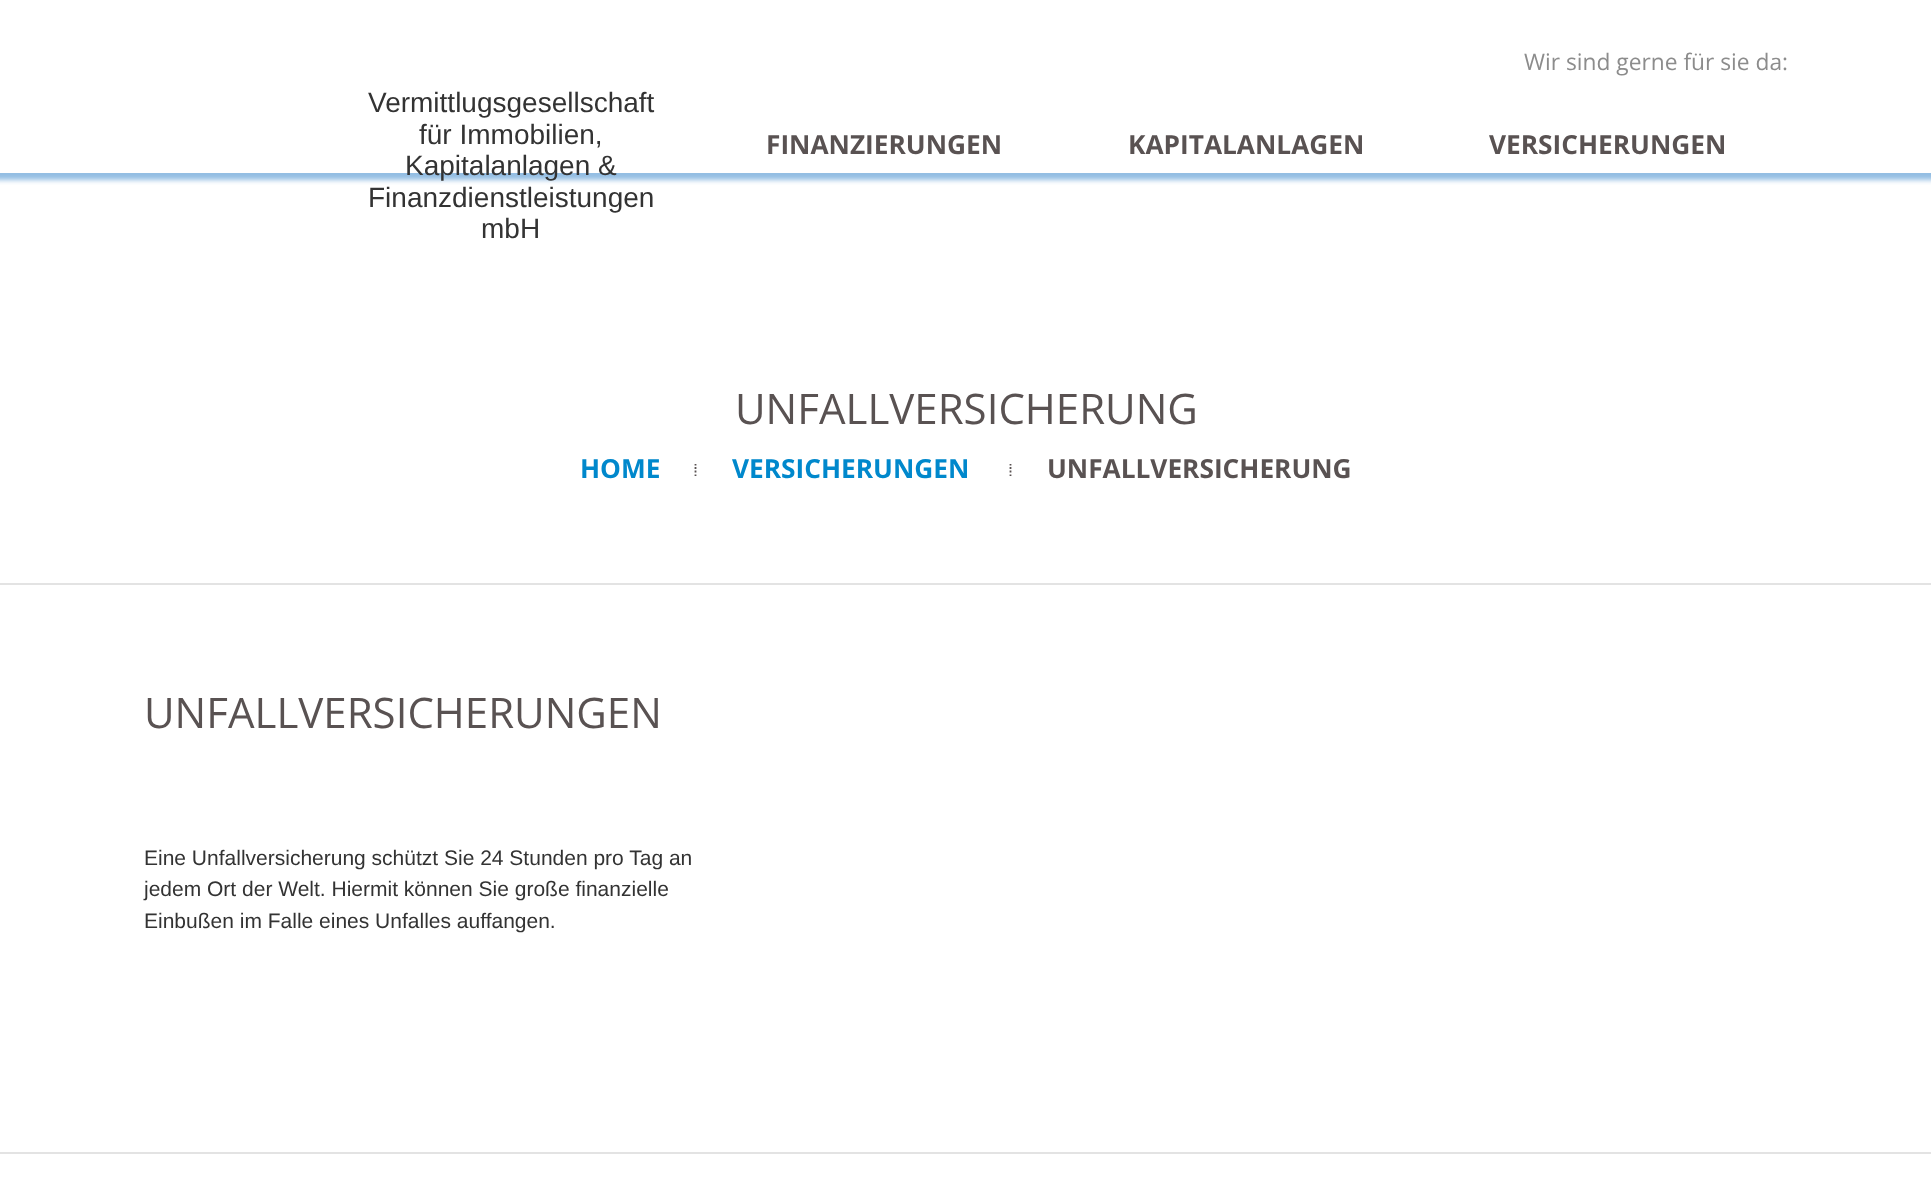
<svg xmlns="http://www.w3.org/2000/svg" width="1931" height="1195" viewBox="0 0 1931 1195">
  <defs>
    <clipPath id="clip1"><rect x="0" y="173" width="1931" height="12"/></clipPath>
  </defs>
  <rect width="100%" height="100%" fill="rgb(255,255,255)"/>
  <g clip-path="url(#clip1)">
    <rect x="-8" y="0" width="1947" height="180" fill="rgba(102,162,215,0.7)" filter="blur(2.5px)"/>
  </g>
  <g font-family="Liberation Sans" font-size="28" fill="rgb(51,51,51)">
    <text x="368" y="112">Vermittlugsgesellschaft</text>
    <text x="419" y="144">für Immobilien,</text>
    <text x="405" y="175">Kapitalanlagen &amp;</text>
    <text x="368" y="207">Finanzdienstleistungen</text>
    <text x="481" y="238">mbH</text>
  </g>
  <text x="1524" y="70" font-family="Open Sans" font-size="22.75" fill="rgb(140,140,140)">Wir sind gerne für sie da:</text>
  <g font-family="Open Sans" font-size="26.25" font-weight="bold" fill="rgb(89,82,82)">
    <text x="766" y="154">FINANZIERUNGEN</text>
    <text x="1128" y="154">KAPITALANLAGEN</text>
    <text x="1489" y="154">VERSICHERUNGEN</text>
  </g>
  <rect x="0" y="583" width="1931" height="2" fill="rgb(227,227,227)"/>
  <text x="735" y="424" font-family="Open Sans" font-size="42" fill="rgb(89,82,82)">UNFALLVERSICHERUNG</text>
  <text x="580" y="478" font-family="Open Sans" font-size="26.25" font-weight="bold" fill="rgb(0,136,204)">HOME</text>
  <path d="M695.5 464V465.5M695.5 467V469M695.5 470.5V472.5M695.5 474.5V476" fill="none" stroke="rgb(89,82,82)" stroke-width="1.8"/>
  <text x="732" y="478" font-family="Open Sans" font-size="26.25" font-weight="bold" fill="rgb(0,136,204)">VERSICHERUNGEN</text>
  <path d="M1010.5 464V465.5M1010.5 467V469M1010.5 470.5V472.5M1010.5 474.5V476" fill="none" stroke="rgb(89,82,82)" stroke-width="1.8"/>
  <text x="1047" y="478" font-family="Open Sans" font-size="26.25" font-weight="bold" fill="rgb(89,82,82)">UNFALLVERSICHERUNG</text>
  <text x="144" y="728" font-family="Open Sans" font-size="42" fill="rgb(89,82,82)">UNFALLVERSICHERUNGEN</text>
  <g font-family="Liberation Sans" font-size="21" fill="rgb(51,51,51)">
    <text>
      <tspan x="144" y="865">Eine Unfallversicherung schützt Sie 24 Stunden pro Tag an</tspan>
      <tspan x="144" y="896">jedem Ort der Welt. Hiermit können Sie große finanzielle</tspan>
      <tspan x="144" y="928">Einbußen im Falle eines Unfalles auffangen.</tspan>
    </text>
  </g>
  <rect x="0" y="1152" width="1931" height="2" fill="rgb(227,227,227)"/>
</svg>
